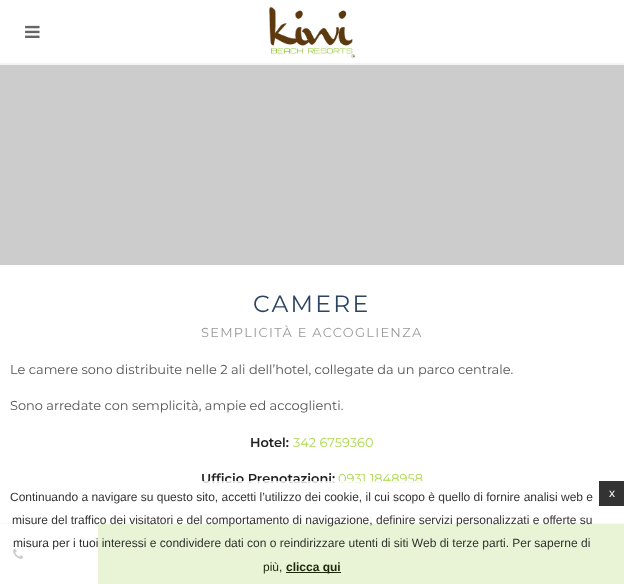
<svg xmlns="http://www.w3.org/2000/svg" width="624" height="584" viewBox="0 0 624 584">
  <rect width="100%" height="100%" fill="rgb(255,255,255)"/>
  <rect x="0" y="63" width="624" height="2" fill="rgb(244,244,244)"/>
  <image x="25" y="25" width="15" height="13" href="pic1.png"/>
  <image x="269" y="6" width="86" height="53" href="pic2.png"/>
  <rect x="0" y="65" width="624" height="200" fill="rgb(204,204,204)"/>
  <text x="253" y="312" font-family="Montserrat" font-size="23.5" letter-spacing="2.25" fill="rgb(45,68,100)">CAMERE</text>
  <text x="201" y="337" font-family="Montserrat" font-size="12.95" letter-spacing="1.3" fill="rgb(153,153,153)">SEMPLICITÀ E ACCOGLIENZA</text>
  <g font-family="Montserrat" font-size="12.95" fill="rgb(85,85,85)">
    <text x="10" y="374">Le camere sono distribuite nelle 2 ali dell’hotel, collegate da un parco centrale.</text>
    <text x="10" y="410">Sono arredate con semplicità, ampie ed accoglienti.</text>
  </g>
  <text x="250" y="447" font-family="Montserrat" font-size="12.95" font-weight="600" fill="rgb(34,34,34)">Hotel:</text>
  <text x="293" y="447" font-family="Montserrat" font-size="12.95" fill="rgb(174,216,85)">342 6759360</text>
  <text x="201" y="483" font-family="Montserrat" font-size="12.95" font-weight="600" fill="rgb(34,34,34)">Ufficio Prenotazioni:</text>
  <text x="338" y="483" font-family="Montserrat" font-size="12.95" fill="rgb(174,216,85)">0931 1848958</text>
  <rect x="0" y="524" width="624" height="60" fill="rgba(0,0,0,0.3)" filter="blur(1.5px)"/>
  <rect x="0" y="524" width="98" height="60" fill="rgb(255,255,255)"/>
  <image x="13" y="548" width="11" height="11" href="pic3.png"/>
  <rect x="98" y="524" width="526" height="60" fill="rgb(146,198,50)"/>
  <rect x="0" y="481" width="624" height="103" fill="rgba(255,255,255,0.8)"/>
  <g font-family="Liberation Sans" font-size="12" fill="rgb(51,51,51)">
    <text x="10" y="501">Continuando a navigare su questo sito, accetti l’utilizzo dei cookie, il cui scopo è quello di fornire analisi web e</text>
    <text x="12" y="524">misure del traffico dei visitatori e del comportamento di navigazione, definire servizi personalizzati e offerte su</text>
  </g>
  <text x="13" y="547" font-family="Liberation Sans" font-size="12" fill="rgb(47,49,44)">misura per i tuoi interessi e condividere dati con o reindirizzare utenti di siti Web di terze parti. Per saperne di</text>
  <text x="263" y="571" font-family="Liberation Sans" font-size="12" fill="rgb(29,40,10)">più,</text>
  <rect x="286" y="572" width="55" height="1" fill="rgb(29,40,10)"/>
  <text x="286" y="571" font-family="Liberation Sans" font-size="12" font-weight="bold" fill="rgb(29,40,10)">clicca qui</text>
  <rect x="599" y="481" width="25" height="25" fill="rgb(51,51,51)"/>
  <text x="609" y="497" font-family="Liberation Sans" font-size="12" fill="rgb(255,255,255)">x</text>
</svg>
